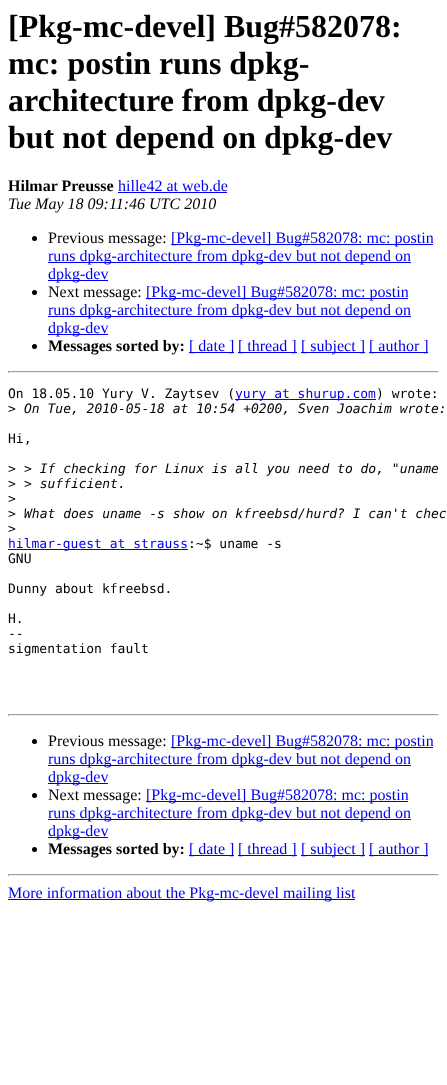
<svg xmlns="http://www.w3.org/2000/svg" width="447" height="1085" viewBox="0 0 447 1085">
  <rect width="100%" height="100%" fill="rgb(255,255,255)"/>
  <g font-family="Liberation Serif" font-size="32" font-weight="bold" fill="rgb(0,0,0)">
    <text>
      <tspan x="8" y="37">[Pkg-mc-devel] Bug#582078:</tspan>
      <tspan x="8" y="74">mc: postin runs dpkg-</tspan>
      <tspan x="8" y="111">architecture from dpkg-dev</tspan>
      <tspan x="8" y="148">but not depend on dpkg-dev</tspan>
    </text>
  </g>
  <text x="8" y="191" font-family="Liberation Serif" font-size="16" font-weight="bold" fill="rgb(0,0,0)">Hilmar Preusse</text>
  <text x="118" y="191" font-family="Liberation Serif" font-size="16" fill="rgb(0,0,238)">hille42 at web.de</text>
  <rect x="118" y="192" width="109" height="1" fill="rgb(0,0,238)"/>
  <text x="8" y="209" font-family="Liberation Serif" font-size="16" font-style="italic" fill="rgb(0,0,0)">Tue May 18 09:11:46 UTC 2010</text>
  <circle cx="34.5" cy="238.5" r="2.5" fill="rgb(0,0,0)"/>
  <text x="48" y="243" font-family="Liberation Serif" font-size="16" fill="rgb(0,0,0)">Previous message:</text>
  <rect x="171" y="244" width="262" height="1" fill="rgb(0,0,238)"/>
  <text x="171" y="243" font-family="Liberation Serif" font-size="16" fill="rgb(0,0,238)">[Pkg-mc-devel] Bug#582078: mc: postin</text>
  <rect x="48" y="262" width="363" height="1" fill="rgb(0,0,238)"/>
  <text x="48" y="261" font-family="Liberation Serif" font-size="16" fill="rgb(0,0,238)">runs dpkg-architecture from dpkg-dev but not depend on</text>
  <rect x="48" y="280" width="60" height="1" fill="rgb(0,0,238)"/>
  <text x="48" y="279" font-family="Liberation Serif" font-size="16" fill="rgb(0,0,238)">dpkg-dev</text>
  <circle cx="34.5" cy="292.5" r="2.5" fill="rgb(0,0,0)"/>
  <text x="48" y="297" font-family="Liberation Serif" font-size="16" fill="rgb(0,0,0)">Next message:</text>
  <rect x="146" y="298" width="262" height="1" fill="rgb(0,0,238)"/>
  <text x="146" y="297" font-family="Liberation Serif" font-size="16" fill="rgb(0,0,238)">[Pkg-mc-devel] Bug#582078: mc: postin</text>
  <rect x="48" y="316" width="363" height="1" fill="rgb(0,0,238)"/>
  <text x="48" y="315" font-family="Liberation Serif" font-size="16" fill="rgb(0,0,238)">runs dpkg-architecture from dpkg-dev but not depend on</text>
  <rect x="48" y="334" width="60" height="1" fill="rgb(0,0,238)"/>
  <text x="48" y="333" font-family="Liberation Serif" font-size="16" fill="rgb(0,0,238)">dpkg-dev</text>
  <circle cx="34.5" cy="346.5" r="2.5" fill="rgb(0,0,0)"/>
  <text x="48" y="351" font-family="Liberation Serif" font-size="16" font-weight="bold" fill="rgb(0,0,0)">Messages sorted by:</text>
  <rect x="189" y="352" width="45" height="1" fill="rgb(0,0,238)"/>
  <text x="189" y="351" font-family="Liberation Serif" font-size="16" fill="rgb(0,0,238)">[ date ]</text>
  <rect x="238" y="352" width="59" height="1" fill="rgb(0,0,238)"/>
  <text x="238" y="351" font-family="Liberation Serif" font-size="16" fill="rgb(0,0,238)">[ thread ]</text>
  <rect x="301" y="352" width="64" height="1" fill="rgb(0,0,238)"/>
  <text x="301" y="351" font-family="Liberation Serif" font-size="16" fill="rgb(0,0,238)">[ subject ]</text>
  <rect x="369" y="352" width="59" height="1" fill="rgb(0,0,238)"/>
  <text x="369" y="351" font-family="Liberation Serif" font-size="16" fill="rgb(0,0,238)">[ author ]</text>
  <rect x="8" y="371" width="431" height="1" fill="rgb(159,159,159)"/>
  <rect x="438" y="371" width="1" height="2" fill="rgb(238,238,238)"/>
  <rect x="8" y="372" width="431" height="1" fill="rgb(238,238,238)"/>
  <rect x="8" y="371" width="1" height="2" fill="rgb(159,159,159)"/>
  <text x="8" y="398" font-family="DejaVu Sans Mono" font-size="13" fill="rgb(0,0,0)">On 18.05.10 Yury V. Zaytsev (</text>
  <rect x="235" y="399" width="141" height="1" fill="rgb(0,0,238)"/>
  <text x="235" y="398" font-family="DejaVu Sans Mono" font-size="13" fill="rgb(0,0,238)">yury at shurup.com</text>
  <g font-family="DejaVu Sans Mono" font-size="13" fill="rgb(0,0,0)">
    <text x="376" y="398">) wrote:</text>
    <text x="8" y="413">&gt;</text>
  </g>
  <text x="24" y="413" font-family="DejaVu Sans Mono" font-size="13" font-style="italic" fill="rgb(0,0,0)">On Tue, 2010-05-18 at 10:54 +0200, Sven Joachim wrote:</text>
  <g font-family="DejaVu Sans Mono" font-size="13" fill="rgb(0,0,0)">
    <text x="8" y="443">Hi,</text>
    <text x="8" y="473">&gt;</text>
  </g>
  <text x="24" y="473" font-family="DejaVu Sans Mono" font-size="13" font-style="italic" fill="rgb(0,0,0)">&gt; If checking for Linux is all you need to do, "uname</text>
  <text x="8" y="488" font-family="DejaVu Sans Mono" font-size="13" fill="rgb(0,0,0)">&gt;</text>
  <text x="24" y="488" font-family="DejaVu Sans Mono" font-size="13" font-style="italic" fill="rgb(0,0,0)">&gt; sufficient.</text>
  <g font-family="DejaVu Sans Mono" font-size="13" fill="rgb(0,0,0)">
    <text>
      <tspan x="8" y="503">&gt;</tspan>
      <tspan x="8" y="518">&gt;</tspan>
    </text>
  </g>
  <text x="24" y="518" font-family="DejaVu Sans Mono" font-size="13" font-style="italic" fill="rgb(0,0,0)">What does uname -s show on kfreebsd/hurd? I can't chec</text>
  <text x="8" y="533" font-family="DejaVu Sans Mono" font-size="13" fill="rgb(0,0,0)">&gt;</text>
  <rect x="8" y="549" width="180" height="1" fill="rgb(0,0,238)"/>
  <text x="8" y="548" font-family="DejaVu Sans Mono" font-size="13" fill="rgb(0,0,238)">hilmar-guest at strauss</text>
  <g font-family="DejaVu Sans Mono" font-size="13" fill="rgb(0,0,0)">
    <text x="188" y="548">:~$ uname -s</text>
    <text x="8" y="563">GNU</text>
    <text x="8" y="593">Dunny about kfreebsd.</text>
    <text>
      <tspan x="8" y="623">H.</tspan>
      <tspan x="8" y="638">--</tspan>
      <tspan x="8" y="653">sigmentation fault</tspan>
    </text>
  </g>
  <rect x="8" y="714" width="431" height="1" fill="rgb(159,159,159)"/>
  <rect x="438" y="714" width="1" height="2" fill="rgb(238,238,238)"/>
  <rect x="8" y="715" width="431" height="1" fill="rgb(238,238,238)"/>
  <rect x="8" y="714" width="1" height="2" fill="rgb(159,159,159)"/>
  <circle cx="34.5" cy="741.5" r="2.5" fill="rgb(0,0,0)"/>
  <text x="48" y="746" font-family="Liberation Serif" font-size="16" fill="rgb(0,0,0)">Previous message:</text>
  <rect x="171" y="747" width="262" height="1" fill="rgb(0,0,238)"/>
  <text x="171" y="746" font-family="Liberation Serif" font-size="16" fill="rgb(0,0,238)">[Pkg-mc-devel] Bug#582078: mc: postin</text>
  <rect x="48" y="765" width="363" height="1" fill="rgb(0,0,238)"/>
  <text x="48" y="764" font-family="Liberation Serif" font-size="16" fill="rgb(0,0,238)">runs dpkg-architecture from dpkg-dev but not depend on</text>
  <rect x="48" y="783" width="60" height="1" fill="rgb(0,0,238)"/>
  <text x="48" y="782" font-family="Liberation Serif" font-size="16" fill="rgb(0,0,238)">dpkg-dev</text>
  <circle cx="34.5" cy="795.5" r="2.5" fill="rgb(0,0,0)"/>
  <text x="48" y="800" font-family="Liberation Serif" font-size="16" fill="rgb(0,0,0)">Next message:</text>
  <rect x="146" y="801" width="262" height="1" fill="rgb(0,0,238)"/>
  <text x="146" y="800" font-family="Liberation Serif" font-size="16" fill="rgb(0,0,238)">[Pkg-mc-devel] Bug#582078: mc: postin</text>
  <rect x="48" y="819" width="363" height="1" fill="rgb(0,0,238)"/>
  <text x="48" y="818" font-family="Liberation Serif" font-size="16" fill="rgb(0,0,238)">runs dpkg-architecture from dpkg-dev but not depend on</text>
  <rect x="48" y="837" width="60" height="1" fill="rgb(0,0,238)"/>
  <text x="48" y="836" font-family="Liberation Serif" font-size="16" fill="rgb(0,0,238)">dpkg-dev</text>
  <circle cx="34.5" cy="849.5" r="2.5" fill="rgb(0,0,0)"/>
  <text x="48" y="854" font-family="Liberation Serif" font-size="16" font-weight="bold" fill="rgb(0,0,0)">Messages sorted by:</text>
  <rect x="189" y="855" width="45" height="1" fill="rgb(0,0,238)"/>
  <text x="189" y="854" font-family="Liberation Serif" font-size="16" fill="rgb(0,0,238)">[ date ]</text>
  <rect x="238" y="855" width="59" height="1" fill="rgb(0,0,238)"/>
  <text x="238" y="854" font-family="Liberation Serif" font-size="16" fill="rgb(0,0,238)">[ thread ]</text>
  <rect x="301" y="855" width="64" height="1" fill="rgb(0,0,238)"/>
  <text x="301" y="854" font-family="Liberation Serif" font-size="16" fill="rgb(0,0,238)">[ subject ]</text>
  <rect x="369" y="855" width="59" height="1" fill="rgb(0,0,238)"/>
  <text x="369" y="854" font-family="Liberation Serif" font-size="16" fill="rgb(0,0,238)">[ author ]</text>
  <rect x="8" y="874" width="431" height="1" fill="rgb(159,159,159)"/>
  <rect x="438" y="874" width="1" height="2" fill="rgb(238,238,238)"/>
  <rect x="8" y="875" width="431" height="1" fill="rgb(238,238,238)"/>
  <rect x="8" y="874" width="1" height="2" fill="rgb(159,159,159)"/>
  <rect x="8" y="899" width="347" height="1" fill="rgb(0,0,238)"/>
  <text x="8" y="898" font-family="Liberation Serif" font-size="16" fill="rgb(0,0,238)">More information about the Pkg-mc-devel mailing list</text>
</svg>
